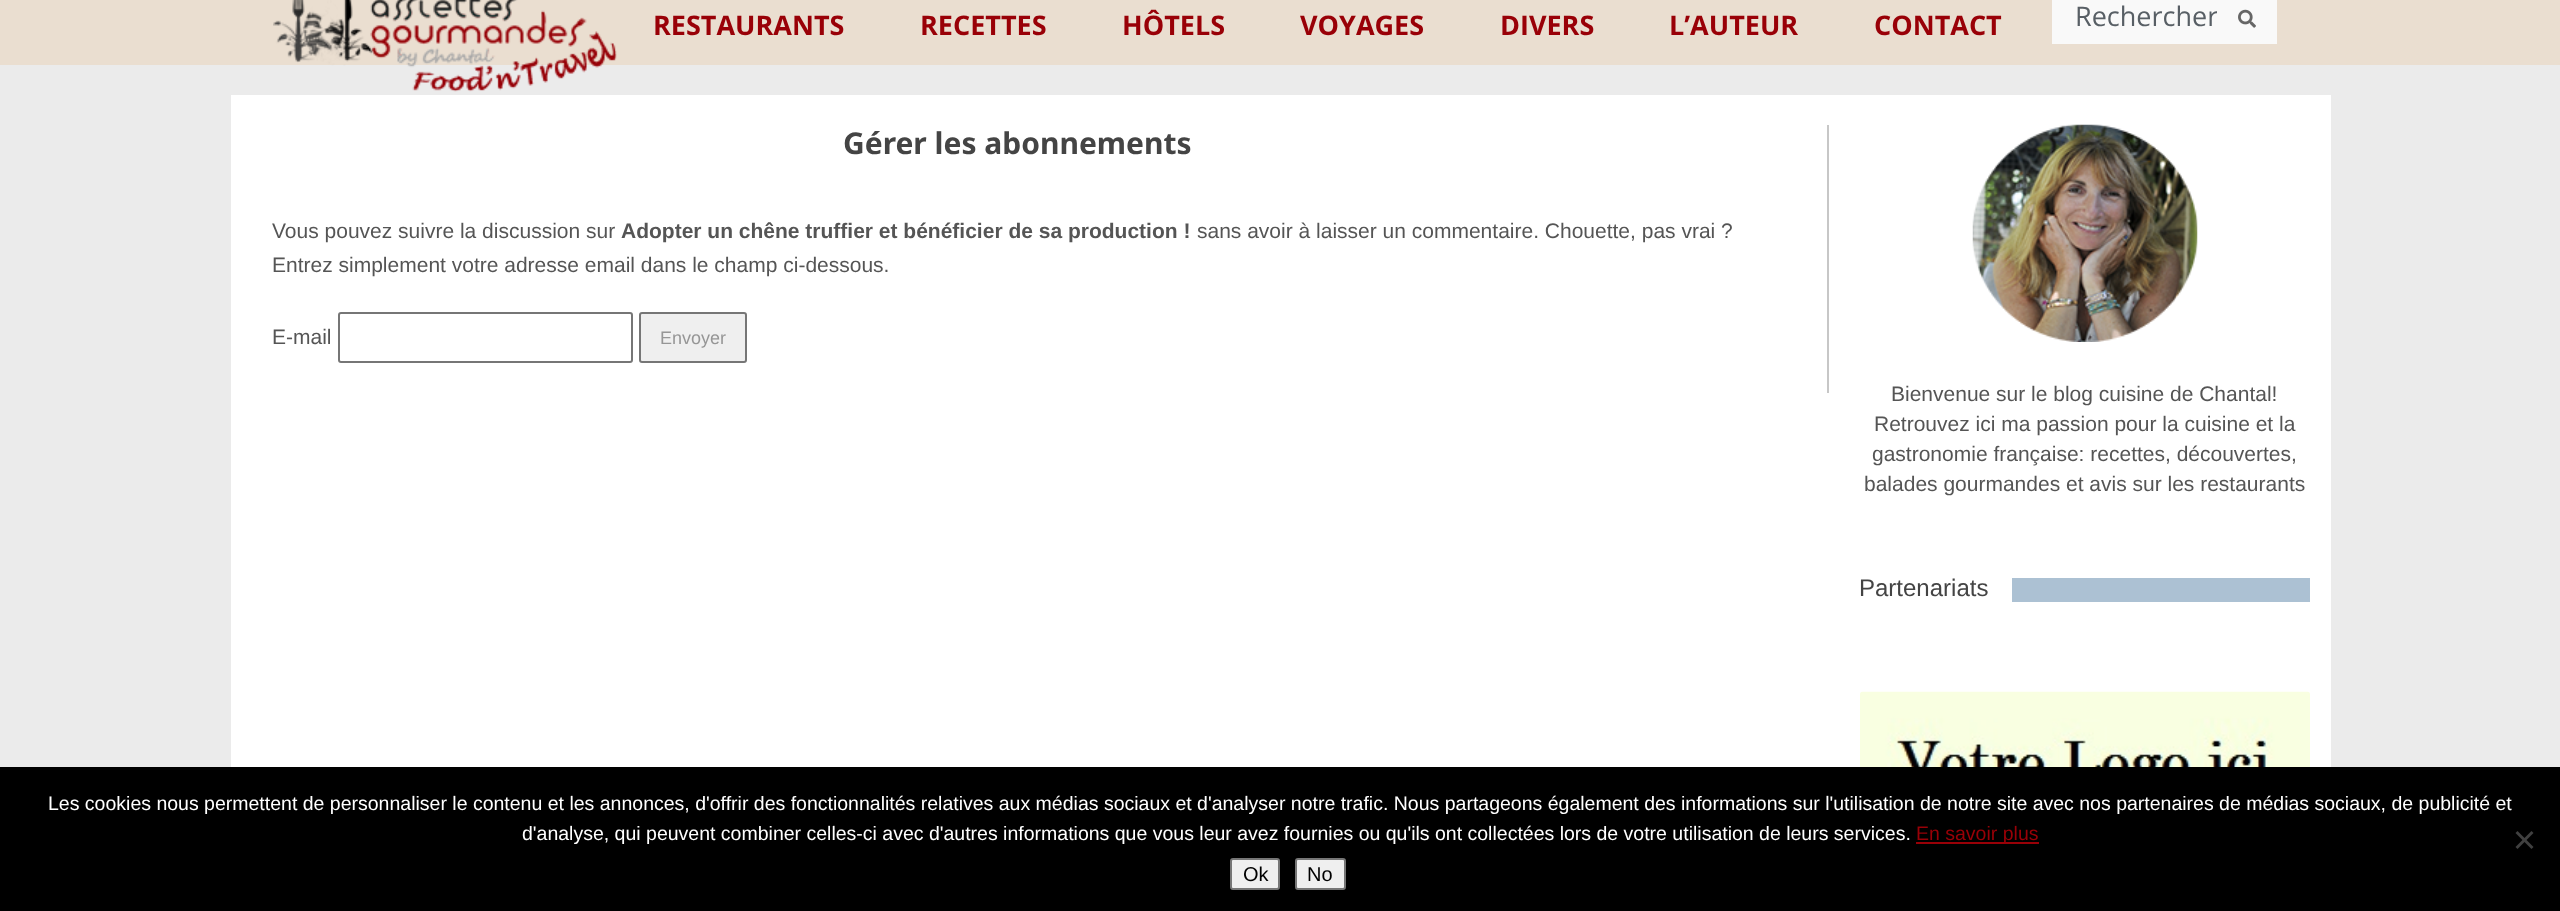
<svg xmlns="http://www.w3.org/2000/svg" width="2560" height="911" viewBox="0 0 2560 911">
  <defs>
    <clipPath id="clip1"><rect x="2075" y="0" width="142" height="33"/></clipPath>
  </defs>
  <rect width="100%" height="100%" fill="rgb(235,235,235)"/>
  <rect x="0" y="0" width="2560" height="65" fill="rgb(234,222,208)"/>
  <image x="273" y="0" width="344" height="92" href="pic1.png"/>
  <g font-family="Open Sans" font-size="27" font-weight="bold" fill="rgb(153,0,7)">
    <text x="653" y="35">RESTAURANTS</text>
    <text x="920" y="35">RECETTES</text>
    <text x="1122" y="35">HÔTELS</text>
    <text x="1300" y="35">VOYAGES</text>
    <text x="1500" y="35">DIVERS</text>
    <text x="1669" y="35">L’AUTEUR</text>
    <text x="1874" y="35">CONTACT</text>
  </g>
  <rect x="2052" y="0" width="225" height="44" fill="rgb(249,249,249)"/>
  <g clip-path="url(#clip1)">
    <text x="2075" y="26" font-family="Open Sans" font-size="27" fill="rgb(88,95,101)">Rechercher</text>
  </g>
  <image x="2238" y="9" width="18" height="19" href="pic2.png"/>
  <rect x="231" y="95" width="2100" height="672" fill="rgb(255,255,255)"/>
  <rect x="1827" y="125" width="2" height="268" fill="rgb(199,199,199)"/>
  <text x="843" y="154" font-family="Noto Sans" font-size="30" font-weight="bold" fill="rgb(68,68,68)">Gérer les abonnements</text>
  <text x="272" y="238" font-family="Liberation Sans" font-size="21" fill="rgb(85,85,85)">Vous pouvez suivre la discussion sur</text>
  <text x="621" y="238" font-family="Liberation Sans" font-size="21" font-weight="bold" fill="rgb(85,85,85)">Adopter un chêne truffier et bénéficier de sa production !</text>
  <g font-family="Liberation Sans" font-size="21" fill="rgb(85,85,85)">
    <text x="1197" y="238">sans avoir à laisser un commentaire. Chouette, pas vrai ?</text>
    <text x="272" y="272">Entrez simplement votre adresse email dans le champ ci-dessous.</text>
    <text x="272" y="344">E-mail</text>
  </g>
  <rect x="339" y="313" width="293" height="49" rx="2" fill="none" stroke="rgb(118,118,118)" stroke-width="2"/>
  <rect x="640" y="313" width="106" height="49" rx="2" fill="rgb(239,239,239)" stroke="rgb(118,118,118)" stroke-width="2"/>
  <text x="660" y="344" font-family="Liberation Sans" font-size="18" fill="rgb(150,150,150)">Envoyer</text>
  <image x="1972" y="124" width="226" height="218" href="pic3.png"/>
  <g font-family="Liberation Sans" font-size="21" fill="rgb(85,85,85)">
    <text x="1891" y="401">Bienvenue sur le blog cuisine de Chantal!</text>
    <text x="1874" y="431">Retrouvez ici ma passion pour la cuisine et la</text>
    <text x="1872" y="461">gastronomie française: recettes, découvertes,</text>
    <text x="1864" y="491">balades gourmandes et avis sur les restaurants</text>
  </g>
  <rect x="2012" y="578" width="298" height="24" fill="rgb(172,193,211)"/>
  <text x="1859" y="596" font-family="Liberation Sans" font-size="24" fill="rgb(68,68,68)">Partenariats</text>
  <image x="1860" y="691" width="450" height="76" href="pic4.png"/>
  <rect x="0" y="767" width="2560" height="144" fill="rgb(0,0,0)"/>
  <g font-family="Liberation Sans" font-size="19.5" fill="rgb(255,255,255)">
    <text x="48" y="810">Les cookies nous permettent de personnaliser le contenu et les annonces, d'offrir des fonctionnalités relatives aux médias sociaux et d'analyser notre trafic. Nous partageons également des informations sur l'utilisation de notre site avec nos partenaires de médias sociaux, de publicité et</text>
    <text x="522" y="840">d'analyse, qui peuvent combiner celles-ci avec d'autres informations que vous leur avez fournies ou qu'ils ont collectées lors de votre utilisation de leurs services.</text>
  </g>
  <rect x="1916" y="842" width="123" height="2" fill="rgb(153,0,7)"/>
  <text x="1916" y="840" font-family="Liberation Sans" font-size="19.5" fill="rgb(153,0,7)">En savoir plus</text>
  <path d="M2531.5 831L2533.5 833L2517.5 849L2515.5 847Z" fill="rgb(64,64,64)"/>
  <path d="M2515.5 833L2517.5 831L2533.5 847L2531.5 849Z" fill="rgb(64,64,64)"/>
  <rect x="1231" y="859" width="48" height="30" rx="2" fill="rgb(239,239,239)" stroke="rgb(118,118,118)" stroke-width="2"/>
  <text x="1243" y="881" font-family="Liberation Sans" font-size="20" fill="rgb(0,0,0)">Ok</text>
  <rect x="1296" y="859" width="49" height="30" rx="2" fill="rgb(239,239,239)" stroke="rgb(118,118,118)" stroke-width="2"/>
  <text x="1307" y="881" font-family="Liberation Sans" font-size="20" fill="rgb(0,0,0)">No</text>
</svg>
